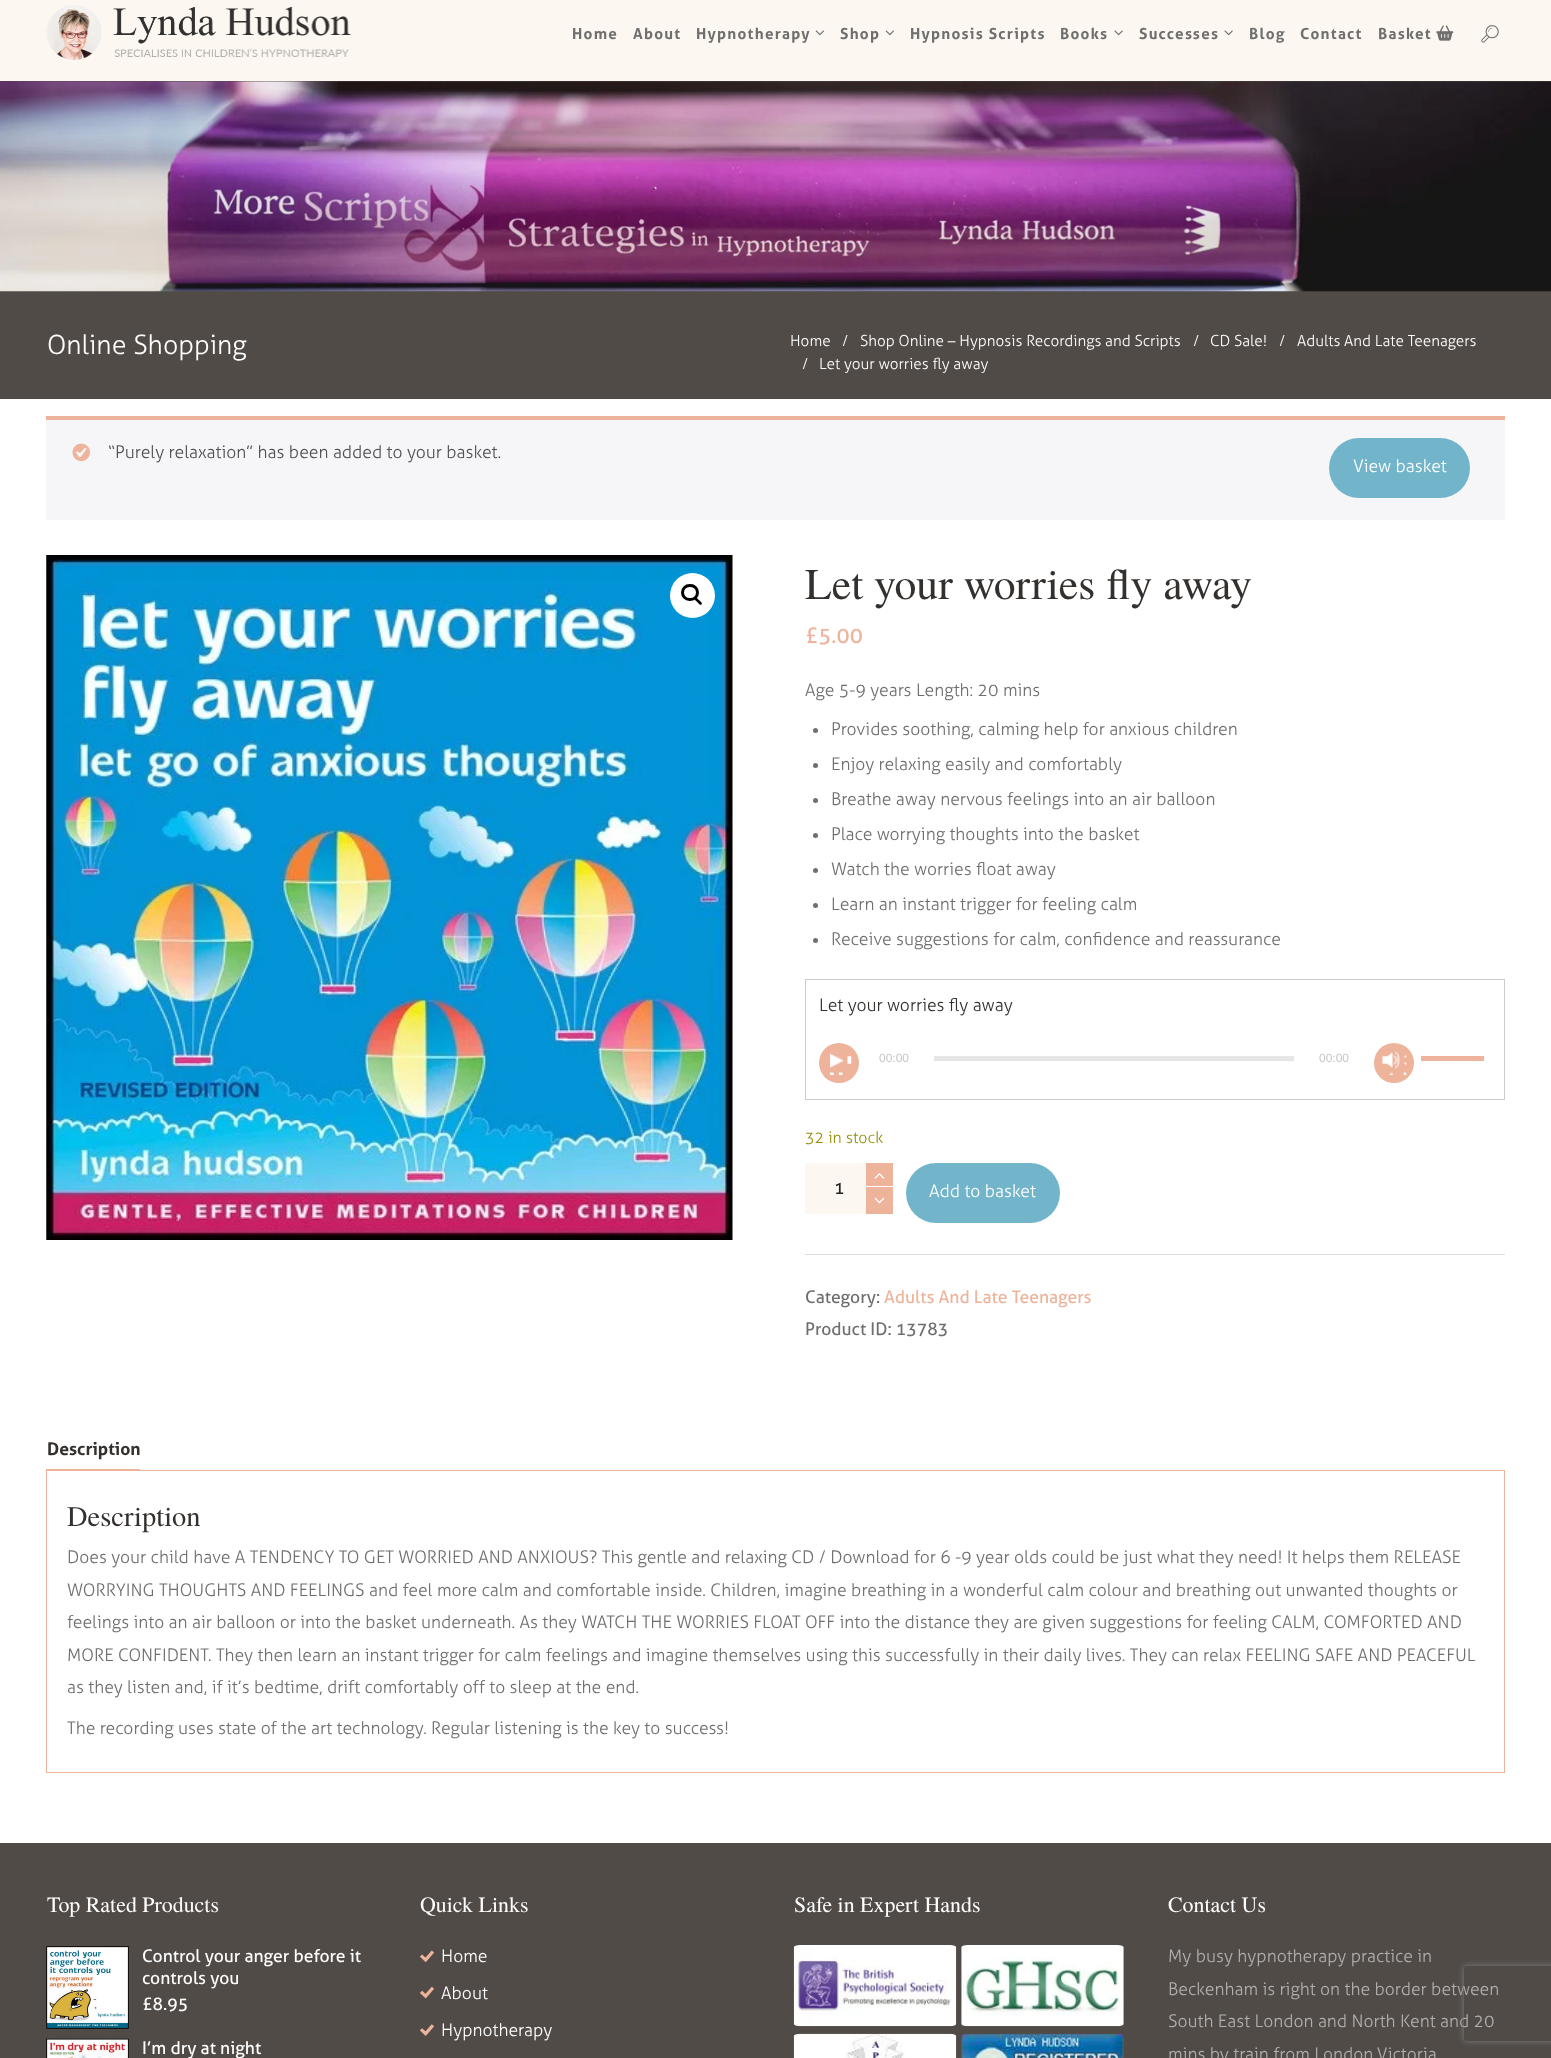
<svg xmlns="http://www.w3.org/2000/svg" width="1551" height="2058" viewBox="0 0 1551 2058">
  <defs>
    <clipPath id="clip1"><path d="M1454 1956H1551V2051H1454ZM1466.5 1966H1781.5C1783 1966 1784 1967 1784 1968.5V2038.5C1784 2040 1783 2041 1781.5 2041H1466.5C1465 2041 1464 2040 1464 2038.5V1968.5C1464 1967 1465 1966 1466.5 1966Z" clip-rule="evenodd"/></clipPath>
  </defs>
  <rect width="100%" height="100%" fill="rgb(255,255,255)"/>
  <rect x="0" y="0" width="1551" height="81" fill="rgb(252,247,241)"/>
  <image x="46" y="5" width="305" height="55" href="pic1.png"/>
  <g font-family="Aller" font-size="15.25" font-weight="bold" letter-spacing="1.25" fill="rgb(111,111,111)">
    <text x="572" y="39">Home</text>
    <text x="633" y="39">About</text>
    <text x="696" y="39">Hypnotherapy</text>
  </g>
  <image x="815" y="30" width="9" height="6" href="pic2.png"/>
  <text x="840" y="39" font-family="Aller" font-size="15.25" font-weight="bold" letter-spacing="1.25" fill="rgb(111,111,111)">Shop</text>
  <image x="885" y="30" width="9" height="6" href="pic2.png"/>
  <g font-family="Aller" font-size="15.25" font-weight="bold" letter-spacing="1.25" fill="rgb(111,111,111)">
    <text x="910" y="39">Hypnosis Scripts</text>
    <text x="1060" y="39">Books</text>
  </g>
  <image x="1114" y="30" width="9" height="6" href="pic3.png"/>
  <text x="1139" y="39" font-family="Aller" font-size="15.25" font-weight="bold" letter-spacing="1.25" fill="rgb(111,111,111)">Successes</text>
  <image x="1224" y="30" width="9" height="6" href="pic3.png"/>
  <g font-family="Aller" font-size="15.25" font-weight="bold" letter-spacing="1.25" fill="rgb(111,111,111)">
    <text x="1249" y="39">Blog</text>
    <text x="1300" y="39">Contact</text>
    <text x="1378" y="39">Basket</text>
  </g>
  <image x="1436" y="25" width="18" height="16" href="pic4.png"/>
  <image x="1481" y="25" width="18" height="18" href="pic5.png"/>
  <rect x="0" y="81" width="1551" height="318" fill="rgb(80,75,71)"/>
  <image x="0" y="81" width="1551" height="211" href="pic6.png"/>
  <text x="47" y="354" font-family="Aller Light" font-size="26.75" font-weight="300" fill="rgb(255,255,255)">Online Shopping</text>
  <g font-family="Aller Light" font-size="15.3" font-weight="300" fill="rgb(255,255,255)">
    <text x="790" y="346">Home</text>
    <text x="842" y="346">/</text>
    <text x="860" y="346">Shop Online – Hypnosis Recordings and Scripts</text>
    <text x="1193" y="346">/</text>
    <text x="1210" y="346">CD Sale!</text>
    <text x="1279" y="346">/</text>
    <text x="1297" y="346">Adults And Late Teenagers</text>
    <text x="802" y="369">/</text>
    <text x="819" y="369">Let your worries fly away</text>
  </g>
  <rect x="46" y="420" width="1459" height="100" fill="rgb(246,245,248)"/>
  <rect x="46" y="416" width="1459" height="4" fill="rgb(237,179,155)"/>
  <image x="72" y="443" width="18" height="19" href="pic7.png"/>
  <text x="108" y="458" font-family="Aller Light" font-size="17.5" font-weight="300" fill="rgb(81,81,81)">“Purely relaxation” has been added to your basket.</text>
  <rect x="1329" y="438" width="141" height="60" rx="30" fill="rgb(114,181,202)"/>
  <text x="1353" y="472" font-family="Aller Light" font-size="17.5" font-weight="300" fill="rgb(255,255,255)">View basket</text>
  <image x="46" y="555" width="687" height="685" href="pic8.png"/>
  <circle cx="692.5" cy="595.5" r="22.5" fill="rgb(255,255,255)"/>
  <rect x="682.5" y="585.5" width="15" height="14" rx="7" fill="none" stroke="rgb(0,0,0)" stroke-width="3"/>
  <path d="M694.5 597.5C696 596 698 599.5 699 600C700 601 703 603 701.5 604.5C700 606 698 602.5 697 602C696.5 601 693 599 694.5 597.5Z" fill="rgb(0,0,0)"/>
  <text x="805" y="599" font-family="TeX Gyre Termes" font-size="43.75" fill="rgb(51,48,46)">Let your worries fly away</text>
  <text x="805" y="643" font-family="Aller" font-size="21.9" fill="rgb(237,179,155)">£5.00</text>
  <text x="805" y="696" font-family="Aller Light" font-size="17.5" font-weight="300" fill="rgb(111,111,111)">Age 5-9 years Length: 20 mins</text>
  <circle cx="815.5" cy="730.5" r="2.5" fill="rgb(111,111,111)"/>
  <text x="831" y="735" font-family="Aller Light" font-size="17.5" font-weight="300" fill="rgb(111,111,111)">Provides soothing, calming help for anxious children</text>
  <circle cx="815.5" cy="765.5" r="2.5" fill="rgb(111,111,111)"/>
  <text x="831" y="770" font-family="Aller Light" font-size="17.5" font-weight="300" fill="rgb(111,111,111)">Enjoy relaxing easily and comfortably</text>
  <circle cx="815.5" cy="800.5" r="2.5" fill="rgb(111,111,111)"/>
  <text x="831" y="805" font-family="Aller Light" font-size="17.5" font-weight="300" fill="rgb(111,111,111)">Breathe away nervous feelings into an air balloon</text>
  <circle cx="815.5" cy="835.5" r="2.5" fill="rgb(111,111,111)"/>
  <text x="831" y="840" font-family="Aller Light" font-size="17.5" font-weight="300" fill="rgb(111,111,111)">Place worrying thoughts into the basket</text>
  <circle cx="815.5" cy="870.5" r="2.5" fill="rgb(111,111,111)"/>
  <text x="831" y="875" font-family="Aller Light" font-size="17.5" font-weight="300" fill="rgb(111,111,111)">Watch the worries float away</text>
  <circle cx="815.5" cy="905.5" r="2.5" fill="rgb(111,111,111)"/>
  <text x="831" y="910" font-family="Aller Light" font-size="17.5" font-weight="300" fill="rgb(111,111,111)">Learn an instant trigger for feeling calm</text>
  <circle cx="815.5" cy="940.5" r="2.5" fill="rgb(111,111,111)"/>
  <text x="831" y="945" font-family="Aller Light" font-size="17.5" font-weight="300" fill="rgb(111,111,111)">Receive suggestions for calm, confidence and reassurance</text>
  <rect x="805.5" y="979.5" width="699" height="120" fill="none" stroke="rgb(204,204,204)"/>
  <text x="819" y="1011" font-family="Aller Light" font-size="17.5" font-weight="300" fill="rgb(51,48,46)">Let your worries fly away</text>
  <circle cx="839" cy="1063" r="20" fill="rgb(237,179,155)"/>
  <image x="829" y="1053" width="23" height="22" href="pic9.png"/>
  <text x="879" y="1062" font-family="Liberation Sans" font-size="12" fill="rgb(197,197,197)">00:00</text>
  <rect x="934" y="1056" width="360" height="5" fill="rgb(230,230,230)"/>
  <text x="1319" y="1062" font-family="Liberation Sans" font-size="12" fill="rgb(197,197,197)">00:00</text>
  <circle cx="1394" cy="1063" r="20" fill="rgb(237,179,155)"/>
  <image x="1382" y="1051" width="25" height="24" href="pic10.png"/>
  <rect x="1421" y="1056" width="63" height="5" fill="rgb(237,179,155)"/>
  <text x="805" y="1143" font-family="Aller Light" font-size="16" font-weight="300" fill="rgb(149,142,9)">32 in stock</text>
  <rect x="805" y="1254" width="700" height="1" fill="rgb(221,221,221)"/>
  <rect x="866" y="1163" width="27" height="23" fill="rgb(237,179,155)"/>
  <image x="874" y="1173" width="11" height="6" href="pic11.png"/>
  <rect x="805" y="1163" width="61" height="51" fill="rgb(252,247,241)"/>
  <text x="834" y="1194" font-family="Aller" font-size="17.5" fill="rgb(34,34,34)">1</text>
  <rect x="866" y="1187" width="27" height="27" fill="rgb(237,179,155)"/>
  <image x="874" y="1197" width="11" height="7" href="pic12.png"/>
  <rect x="906" y="1163" width="154" height="60" rx="30" fill="rgb(114,181,202)"/>
  <text x="929" y="1197" font-family="Aller Light" font-size="17.5" font-weight="300" fill="rgb(255,255,255)">Add to basket</text>
  <text x="805" y="1303" font-family="Aller" font-size="17.5" fill="rgb(111,111,111)">Category:</text>
  <text x="884" y="1303" font-family="Aller" font-size="17.5" fill="rgb(237,179,155)">Adults And Late Teenagers</text>
  <text x="805" y="1335" font-family="Aller" font-size="17.5" fill="rgb(111,111,111)">Product ID: 13783</text>
  <text x="47" y="1455" font-family="Aller" font-size="17.5" font-weight="bold" fill="rgb(51,48,46)">Description</text>
  <rect x="46" y="1469" width="94" height="1" fill="rgb(237,179,155)"/>
  <rect x="46.5" y="1470.5" width="1458" height="302" fill="none" stroke="rgb(237,179,155)"/>
  <text x="67" y="1526" font-family="TeX Gyre Termes" font-size="28.5" fill="rgb(51,48,46)">Description</text>
  <g font-family="Aller Light" font-size="17.5" font-weight="300" fill="rgb(111,111,111)">
    <text>
      <tspan x="67" y="1563">Does your child have A TENDENCY TO GET WORRIED AND ANXIOUS? This gentle and relaxing CD / Download for 6 -9 year olds could be just what they need! It helps them RELEASE</tspan>
      <tspan x="67" y="1596">WORRYING THOUGHTS AND FEELINGS and feel more calm and comfortable inside. Children, imagine breathing in a wonderful calm colour and breathing out unwanted thoughts or</tspan>
      <tspan x="67" y="1628">feelings into an air balloon or into the basket underneath. As they WATCH THE WORRIES FLOAT OFF into the distance they are given suggestions for feeling CALM, COMFORTED AND</tspan>
      <tspan x="67" y="1661">MORE CONFIDENT. They then learn an instant trigger for calm feelings and imagine themselves using this successfully in their daily lives. They can relax FEELING SAFE AND PEACEFUL</tspan>
      <tspan x="67" y="1693">as they listen and, if it’s bedtime, drift comfortably off to sleep at the end.</tspan>
    </text>
    <text x="67" y="1734">The recording uses state of the art technology. Regular listening is the key to success!</text>
  </g>
  <rect x="0" y="1843" width="1551" height="215" fill="rgb(80,75,71)"/>
  <text x="47" y="1912" font-family="TeX Gyre Termes" font-size="21.9" fill="rgb(255,255,255)">Top Rated Products</text>
  <image x="46" y="1946" width="83" height="83" href="pic13.png"/>
  <g font-family="Aller" font-size="17.5" fill="rgb(255,255,255)">
    <text>
      <tspan x="142" y="1962">Control your anger before it</tspan>
      <tspan x="142" y="1984">controls you</tspan>
      <tspan x="142" y="2010">£8.95</tspan>
    </text>
  </g>
  <image x="46" y="2038" width="83" height="20" href="pic14.png"/>
  <text x="142" y="2054" font-family="Aller" font-size="17.5" fill="rgb(255,255,255)">I’m dry at night</text>
  <text x="420" y="1912" font-family="TeX Gyre Termes" font-size="21.9" fill="rgb(255,255,255)">Quick Links</text>
  <image x="420" y="1950" width="14" height="13" href="pic15.png"/>
  <text x="441" y="1962" font-family="Aller Light" font-size="17.5" font-weight="300" fill="rgb(255,255,255)">Home</text>
  <image x="420" y="1986" width="14" height="13" href="pic16.png"/>
  <text x="441" y="1999" font-family="Aller Light" font-size="17.5" font-weight="300" fill="rgb(255,255,255)">About</text>
  <image x="420" y="2024" width="14" height="12" href="pic17.png"/>
  <text x="441" y="2036" font-family="Aller Light" font-size="17.5" font-weight="300" fill="rgb(255,255,255)">Hypnotherapy</text>
  <text x="794" y="1912" font-family="TeX Gyre Termes" font-size="21.9" fill="rgb(255,255,255)">Safe in Expert Hands</text>
  <image x="793" y="1945" width="164" height="82" href="pic18.png"/>
  <image x="961" y="1945" width="163" height="82" href="pic19.png"/>
  <image x="793" y="2033" width="164" height="25" href="pic20.png"/>
  <image x="961" y="2033" width="163" height="25" href="pic21.png"/>
  <text x="1168" y="1912" font-family="TeX Gyre Termes" font-size="21.9" fill="rgb(255,255,255)">Contact Us</text>
  <g font-family="Aller Light" font-size="17.5" font-weight="300" fill="rgb(177,176,175)">
    <text>
      <tspan x="1168" y="1962">My busy hypnotherapy practice in</tspan>
      <tspan x="1168" y="1995">Beckenham is right on the border between</tspan>
      <tspan x="1168" y="2027">South East London and North Kent and 20</tspan>
      <tspan x="1168" y="2060">mins by train from London,Victoria</tspan>
    </text>
  </g>
  <g clip-path="url(#clip1)">
    <rect x="1464" y="1966" width="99" height="75" rx="2.5" fill="rgb(128,128,128)" filter="blur(3px)"/>
  </g>
</svg>
